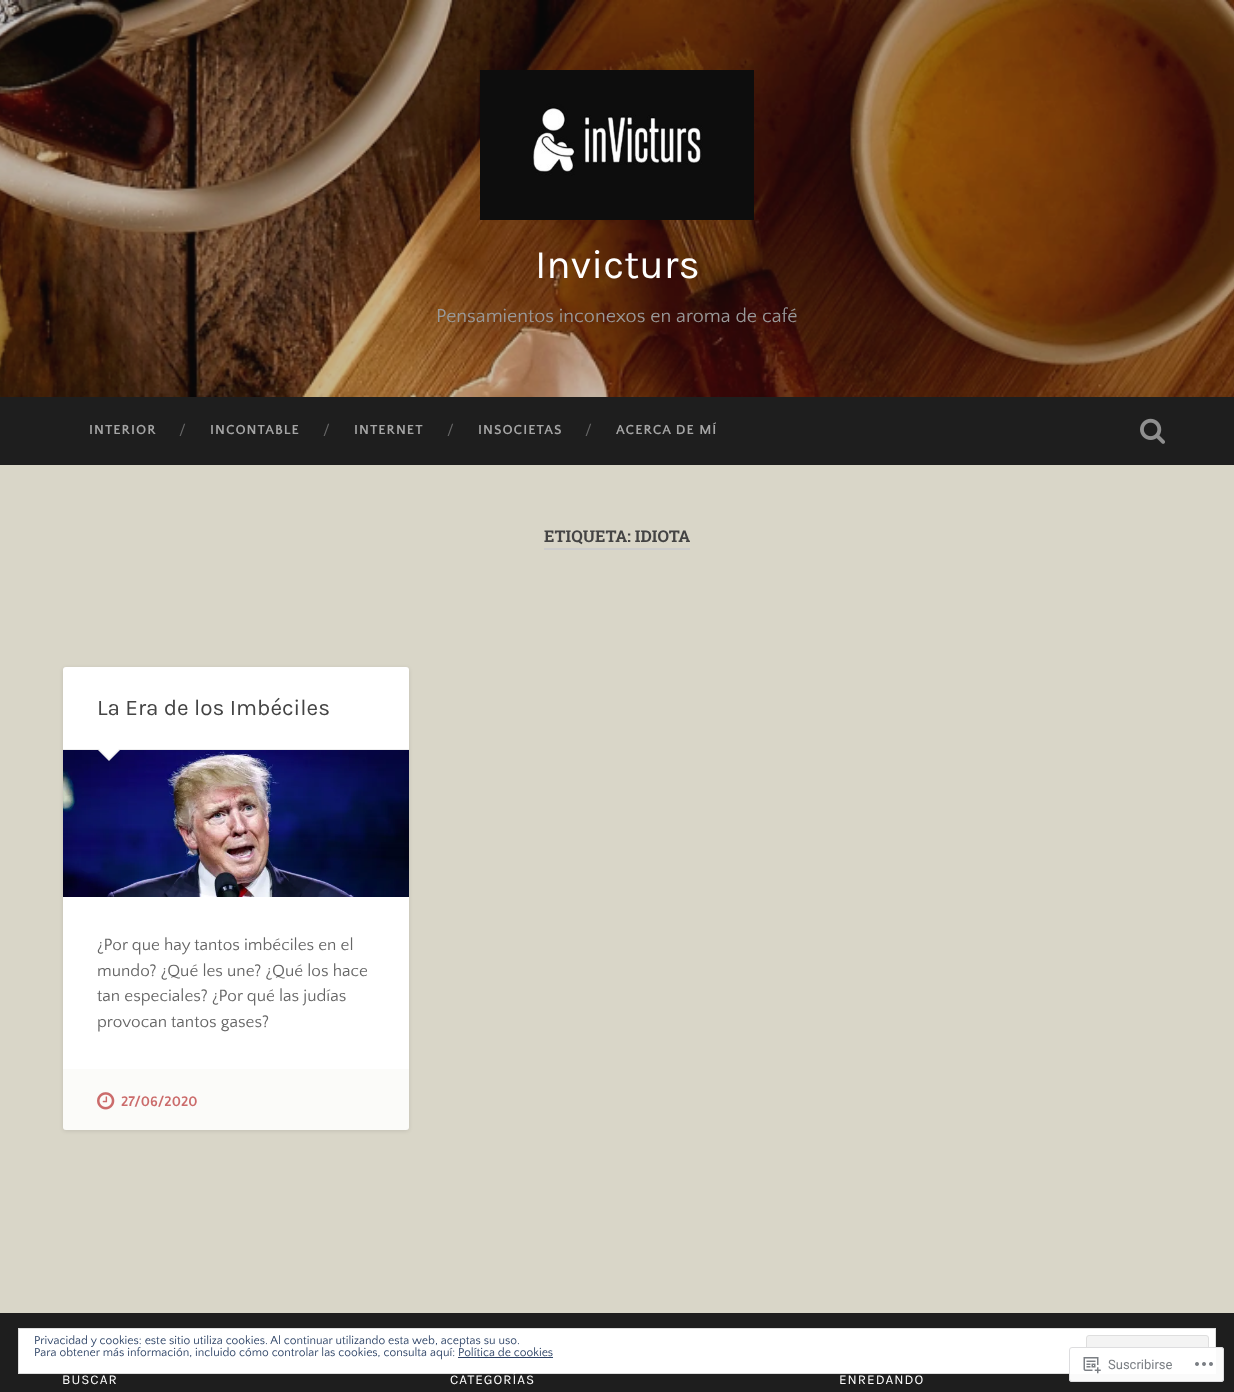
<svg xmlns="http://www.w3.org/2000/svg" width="1234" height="1392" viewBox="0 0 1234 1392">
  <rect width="100%" height="100%" fill="rgb(217,214,200)"/>
  <image x="0" y="0" width="1234" height="397" href="pic1.png"/>
  <image x="480" y="70" width="274" height="150" href="pic2.png"/>
  <text x="535" y="278" font-family="Karla" font-size="40.5" fill="rgb(255,255,255)">Invicturs</text>
  <text x="436" y="322" font-family="Quattrocento Sans" font-size="19.75" fill="rgb(153,153,153)">Pensamientos inconexos en aroma de café</text>
  <rect x="0" y="397" width="1234" height="68" fill="rgb(30,30,30)"/>
  <text x="89" y="434" font-family="Quattrocento Sans" font-size="13.75" font-weight="bold" letter-spacing="1" fill="rgb(165,165,165)">INTERIOR</text>
  <text x="179" y="435" font-family="Quattrocento Sans" font-size="16" fill="rgb(102,102,102)">/</text>
  <text x="210" y="434" font-family="Quattrocento Sans" font-size="13.75" font-weight="bold" letter-spacing="1" fill="rgb(165,165,165)">INCONTABLE</text>
  <text x="323" y="435" font-family="Quattrocento Sans" font-size="16" fill="rgb(102,102,102)">/</text>
  <text x="354" y="434" font-family="Quattrocento Sans" font-size="13.75" font-weight="bold" letter-spacing="1" fill="rgb(165,165,165)">INTERNET</text>
  <text x="447" y="435" font-family="Quattrocento Sans" font-size="16" fill="rgb(102,102,102)">/</text>
  <text x="478" y="434" font-family="Quattrocento Sans" font-size="13.75" font-weight="bold" letter-spacing="1" fill="rgb(165,165,165)">INSOCIETAS</text>
  <text x="585" y="435" font-family="Quattrocento Sans" font-size="16" fill="rgb(102,102,102)">/</text>
  <text x="616" y="434" font-family="Quattrocento Sans" font-size="13.75" font-weight="bold" letter-spacing="1" fill="rgb(165,165,165)">ACERCA DE MÍ</text>
  <image x="1140" y="418" width="25" height="26" href="pic3.png"/>
  <rect x="544" y="548" width="146" height="2" fill="rgb(204,204,204)"/>
  <text x="544" y="542" font-family="Roboto Slab" font-size="16.25" font-weight="bold" fill="rgb(68,68,68)">ETIQUETA: IDIOTA</text>
  <rect x="63" y="668" width="346" height="463" rx="3" fill="rgba(0,0,0,0.1)" filter="blur(2px)"/>
  <rect x="63" y="667" width="346" height="463" rx="3" fill="rgb(255,255,255)"/>
  <rect x="63" y="749" width="346" height="1" fill="rgb(238,238,238)"/>
  <text x="97" y="715" font-family="Karla" font-size="22.5" fill="rgb(68,68,68)">La Era de los Imbéciles</text>
  <image x="63" y="750" width="346" height="147" href="pic4.png"/>
  <path d="M97 749H121L109 761Z" fill="rgb(238,238,238)"/>
  <path d="M98 748H120L109 759Z" fill="rgb(255,255,255)"/>
  <g font-family="Quattrocento Sans" font-size="17.1" fill="rgb(102,102,102)">
    <text>
      <tspan x="97" y="950">¿Por que hay tantos imbéciles en el</tspan>
      <tspan x="97" y="976">mundo? ¿Qué les une? ¿Qué los hace</tspan>
      <tspan x="97" y="1001">tan especiales? ¿Por qué las judías</tspan>
      <tspan x="97" y="1027">provocan tantos gases?</tspan>
    </text>
  </g>
  <path d="M63 1069H409V1127C409 1128.5 407.5 1130 406 1130H66C64.5 1130 63 1128.5 63 1127Z" fill="rgba(217,214,200,0.1)"/>
  <image x="97" y="1092" width="18" height="18" href="pic5.png"/>
  <text x="121" y="1106" font-family="Quattrocento Sans" font-size="14.5" font-weight="bold" fill="rgb(203,107,107)">27/06/2020</text>
  <rect x="0" y="1313" width="1234" height="79" fill="rgb(30,30,30)"/>
  <rect x="18.5" y="1328.5" width="1197" height="45" fill="rgb(255,255,255)" stroke="rgb(222,222,222)"/>
  <text x="34" y="1344" font-family="Quattrocento Sans" font-size="12" fill="rgb(46,68,103)">Privacidad y cookies: este sitio utiliza cookies. Al continuar utilizando esta web, aceptas su uso.</text>
  <rect x="1086.5" y="1335.5" width="122" height="31" rx="2.5" fill="rgb(243,243,243)" stroke="rgb(222,222,222)"/>
  <text x="34" y="1356" font-family="Quattrocento Sans" font-size="12" fill="rgb(46,68,103)">Para obtener más información, incluido cómo controlar las cookies, consulta aquí: Política de cookies</text>
  <rect x="458" y="1357" width="95" height="1" fill="rgb(46,68,103)"/>
  <rect x="1069" y="1347" width="155" height="35" rx="3" fill="rgba(255,255,255,0.98)"/>
  <rect x="1069.5" y="1347.5" width="154" height="34" rx="2.5" fill="none" stroke="rgba(220,220,222,0.98)"/>
  <image x="1083" y="1357" width="18" height="17" href="pic6.png"/>
  <text x="1108" y="1369" font-family="Roboto" font-size="13" fill="rgb(123,127,132)">Suscribirse</text>
  <image x="1195" y="1362" width="18" height="4" href="pic7.png"/>
  <g font-family="Karla" font-size="13.5" letter-spacing="1" fill="rgb(255,255,255)">
    <text x="62" y="1384">BUSCAR</text>
    <text x="450" y="1384">CATEGORÍAS</text>
    <text x="839" y="1384">ENREDANDO</text>
  </g>
</svg>
